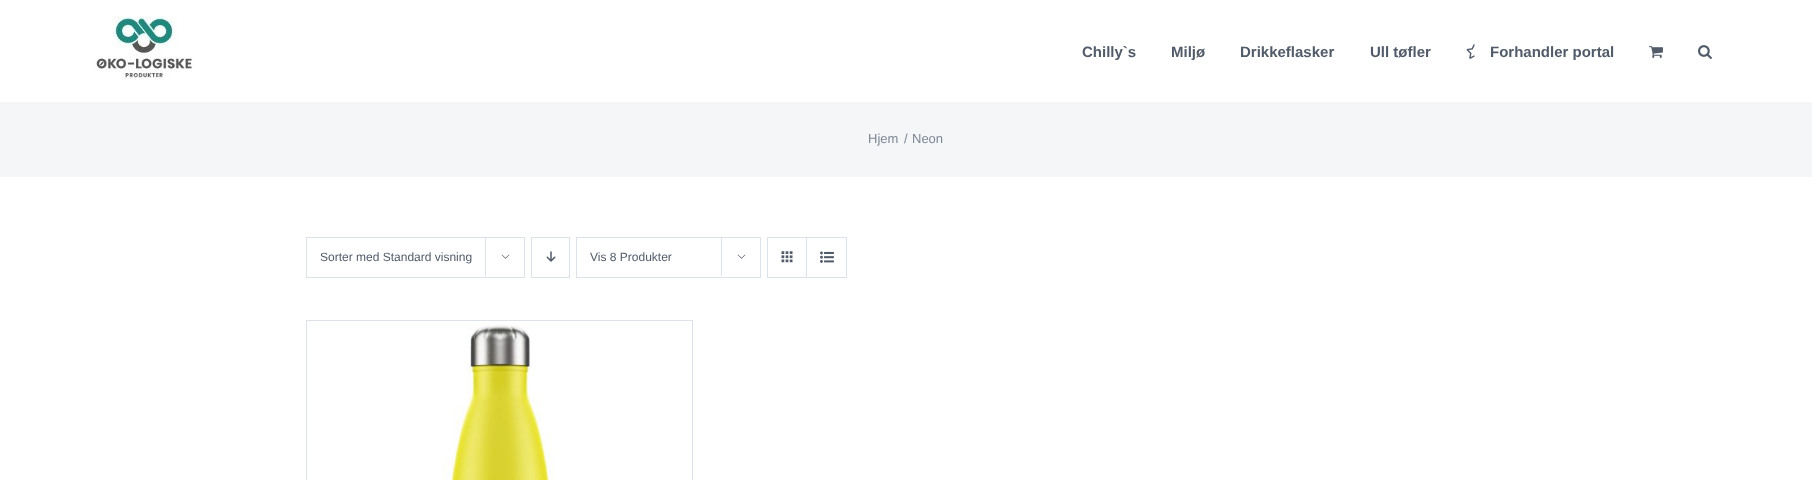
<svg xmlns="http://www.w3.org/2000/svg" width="1812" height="480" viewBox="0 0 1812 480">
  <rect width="100%" height="100%" fill="rgb(255,255,255)"/>
  <image x="93" y="16" width="100" height="64" href="pic1.png"/>
  <g font-family="Liberation Sans" font-size="15" font-weight="bold" fill="rgb(81,91,105)">
    <text x="1082" y="57">Chilly`s</text>
    <text x="1171" y="57">Miljø</text>
    <text x="1240" y="57">Drikkeflasker</text>
    <text x="1370" y="57">Ull tøfler</text>
  </g>
  <image x="1466" y="43" width="9" height="16" href="pic2.png"/>
  <text x="1490" y="57" font-family="Liberation Sans" font-size="15" font-weight="bold" fill="rgb(81,91,105)">Forhandler portal</text>
  <image x="1649" y="46" width="14" height="12" href="pic3.png"/>
  <image x="1698" y="45" width="14" height="14" href="pic4.png"/>
  <rect x="0" y="102" width="1812" height="75" fill="rgb(244,246,248)"/>
  <g font-family="Liberation Sans" font-size="13" fill="rgb(127,135,149)">
    <text x="868" y="143">Hjem</text>
    <text x="904" y="143">/</text>
    <text x="912" y="143">Neon</text>
  </g>
  <rect x="306.5" y="237.5" width="218" height="40" fill="none" stroke="rgb(219,226,234)"/>
  <text x="320" y="261" font-family="Liberation Sans" font-size="12" fill="rgb(81,91,105)">Sorter med Standard visning</text>
  <rect x="485" y="237" width="1" height="39" fill="rgb(219,226,234)"/>
  <image x="501" y="254" width="9" height="5" href="pic5.png"/>
  <rect x="531.5" y="237.5" width="38" height="40" fill="none" stroke="rgb(219,226,234)"/>
  <image x="546" y="251" width="10" height="11" href="pic6.png"/>
  <rect x="576.5" y="237.5" width="184" height="40" fill="none" stroke="rgb(219,226,234)"/>
  <text x="590" y="261" font-family="Liberation Sans" font-size="12" fill="rgb(81,91,105)">Vis 8 Produkter</text>
  <rect x="721" y="237" width="1" height="39" fill="rgb(219,226,234)"/>
  <image x="737" y="254" width="9" height="5" href="pic5.png"/>
  <rect x="767.5" y="237.5" width="79" height="40" fill="none" stroke="rgb(219,226,234)"/>
  <rect x="806" y="238" width="1" height="39" fill="rgb(219,226,234)"/>
  <image x="781" y="251" width="12" height="12" href="pic7.png"/>
  <image x="820" y="251" width="14" height="12" href="pic8.png"/>
  <rect x="306" y="320" width="387" height="1" fill="rgb(219,226,234)"/>
  <rect x="692" y="320" width="1" height="160" fill="rgb(219,226,234)"/>
  <rect x="306" y="320" width="1" height="160" fill="rgb(219,226,234)"/>
  <image x="307" y="321" width="385" height="159" href="pic9.png"/>
</svg>
